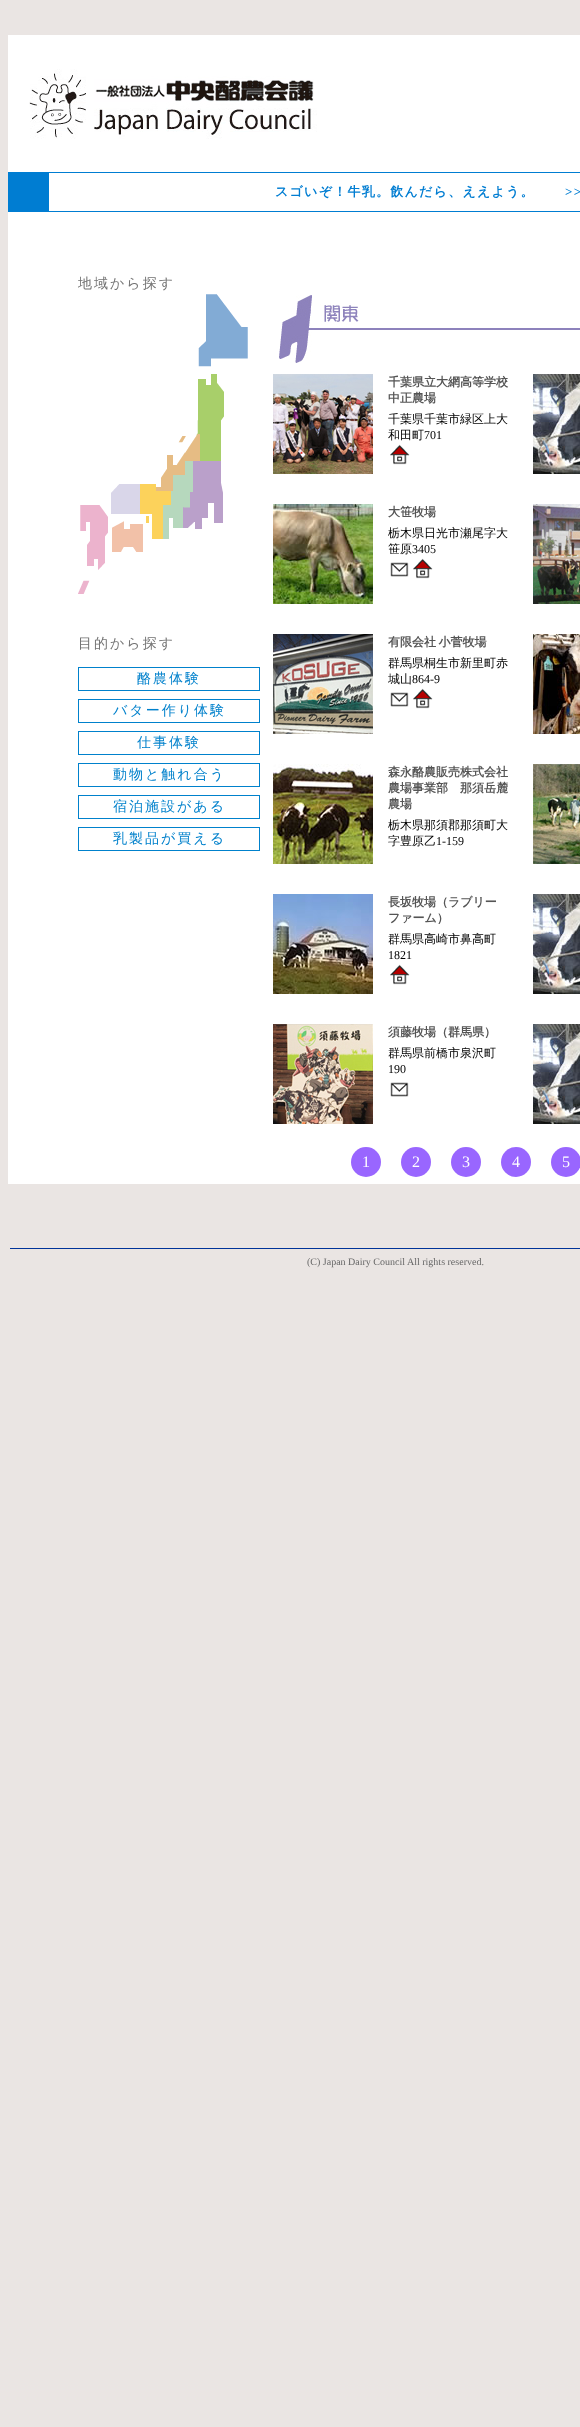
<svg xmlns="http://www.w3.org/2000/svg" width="580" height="2427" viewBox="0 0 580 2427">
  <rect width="100%" height="100%" fill="rgb(234,229,227)"/>
  <rect x="8" y="35" width="572" height="1149" fill="rgb(255,255,255)"/>
  <image x="29" y="69" width="288" height="70" href="pic1.png"/>
  <rect x="8.5" y="172.5" width="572" height="39" fill="none" stroke="rgb(0,125,210)"/>
  <rect x="9" y="173" width="40" height="38" fill="rgb(0,125,210)"/>
  <text x="275" y="196" font-family="WenQuanYi Zen Hei" font-size="13" font-weight="bold" letter-spacing="1.25" fill="rgb(0,125,210)">スゴいぞ！牛乳。飲んだら、ええよう。</text>
  <text x="565" y="196" font-family="Liberation Serif" font-size="13" font-weight="bold" letter-spacing="1.25" fill="rgb(0,125,210)">&gt;&gt;</text>
  <text x="78" y="288" font-family="WenQuanYi Zen Hei" font-size="14" font-weight="500" letter-spacing="2" fill="rgb(115,115,115)">地域から探す</text>
  <image x="78" y="294" width="170" height="300" href="pic2.png"/>
  <text x="78" y="648" font-family="WenQuanYi Zen Hei" font-size="14" font-weight="500" letter-spacing="2" fill="rgb(115,115,115)">目的から探す</text>
  <rect x="78.5" y="667.5" width="181" height="23" fill="none" stroke="rgb(0,129,204)"/>
  <text x="137" y="683" font-family="WenQuanYi Zen Hei" font-size="14" font-weight="500" letter-spacing="2" fill="rgb(0,129,204)">酪農体験</text>
  <rect x="78.5" y="699.5" width="181" height="23" fill="none" stroke="rgb(0,129,204)"/>
  <text x="113" y="715" font-family="WenQuanYi Zen Hei" font-size="14" font-weight="500" letter-spacing="2" fill="rgb(0,129,204)">バター作り体験</text>
  <rect x="78.5" y="731.5" width="181" height="23" fill="none" stroke="rgb(0,129,204)"/>
  <text x="137" y="747" font-family="WenQuanYi Zen Hei" font-size="14" font-weight="500" letter-spacing="2" fill="rgb(0,129,204)">仕事体験</text>
  <rect x="78.5" y="763.5" width="181" height="23" fill="none" stroke="rgb(0,129,204)"/>
  <text x="113" y="779" font-family="WenQuanYi Zen Hei" font-size="14" font-weight="500" letter-spacing="2" fill="rgb(0,129,204)">動物と触れ合う</text>
  <rect x="78.5" y="795.5" width="181" height="23" fill="none" stroke="rgb(0,129,204)"/>
  <text x="113" y="811" font-family="WenQuanYi Zen Hei" font-size="14" font-weight="500" letter-spacing="2" fill="rgb(0,129,204)">宿泊施設がある</text>
  <rect x="78.5" y="827.5" width="181" height="23" fill="none" stroke="rgb(0,129,204)"/>
  <text x="113" y="843" font-family="WenQuanYi Zen Hei" font-size="14" font-weight="500" letter-spacing="2" fill="rgb(0,129,204)">乳製品が買える</text>
  <image x="279" y="295" width="301" height="68" href="pic3.png"/>
  <image x="273" y="374" width="100" height="100" href="pic4.png"/>
  <g font-family="WenQuanYi Zen Hei" font-size="12" font-weight="bold" fill="rgb(85,85,85)">
    <text>
      <tspan x="388" y="386">千葉県立大網高等学校</tspan>
      <tspan x="388" y="402">中正農場</tspan>
    </text>
  </g>
  <g font-family="WenQuanYi Zen Hei" font-size="12" font-weight="500" fill="rgb(0,0,0)">
    <text>
      <tspan x="388" y="423">千葉県千葉市緑区上大</tspan>
      <tspan x="388" y="439">和田町</tspan>
    </text>
  </g>
  <text x="424" y="439" font-family="Liberation Serif" font-size="12" fill="rgb(0,0,0)">701</text>
  <image x="390" y="444" width="20" height="21" href="pic5.png"/>
  <image x="533" y="374" width="47" height="100" href="pic6.png"/>
  <image x="273" y="504" width="100" height="100" href="pic7.png"/>
  <text x="388" y="516" font-family="WenQuanYi Zen Hei" font-size="12" font-weight="bold" fill="rgb(85,85,85)">大笹牧場</text>
  <g font-family="WenQuanYi Zen Hei" font-size="12" font-weight="500" fill="rgb(0,0,0)">
    <text>
      <tspan x="388" y="537">栃木県日光市瀬尾字大</tspan>
      <tspan x="388" y="553">笹原</tspan>
    </text>
  </g>
  <text x="412" y="553" font-family="Liberation Serif" font-size="12" fill="rgb(0,0,0)">3405</text>
  <image x="390" y="562" width="19" height="15" href="pic8.png"/>
  <image x="413" y="558" width="20" height="21" href="pic5.png"/>
  <image x="533" y="504" width="47" height="100" href="pic9.png"/>
  <image x="273" y="634" width="100" height="100" href="pic10.png"/>
  <text x="388" y="646" word-spacing="-1" font-family="WenQuanYi Zen Hei" font-size="12" font-weight="bold" fill="rgb(85,85,85)">有限会社 小菅牧場</text>
  <g font-family="WenQuanYi Zen Hei" font-size="12" font-weight="500" fill="rgb(0,0,0)">
    <text>
      <tspan x="388" y="667">群馬県桐生市新里町赤</tspan>
      <tspan x="388" y="683">城山</tspan>
    </text>
  </g>
  <text x="412" y="683" font-family="Liberation Serif" font-size="12" fill="rgb(0,0,0)">864-9</text>
  <image x="390" y="692" width="19" height="15" href="pic8.png"/>
  <image x="413" y="688" width="20" height="21" href="pic5.png"/>
  <image x="533" y="634" width="47" height="100" href="pic11.png"/>
  <image x="273" y="764" width="100" height="100" href="pic12.png"/>
  <g font-family="WenQuanYi Zen Hei" font-size="12" font-weight="bold" fill="rgb(85,85,85)">
    <text>
      <tspan x="388" y="776">森永酪農販売株式会社</tspan>
      <tspan x="388" y="792">農場事業部　那須岳麓</tspan>
      <tspan x="388" y="808">農場</tspan>
    </text>
  </g>
  <g font-family="WenQuanYi Zen Hei" font-size="12" font-weight="500" fill="rgb(0,0,0)">
    <text>
      <tspan x="388" y="829">栃木県那須郡那須町大</tspan>
      <tspan x="388" y="845">字豊原乙</tspan>
    </text>
  </g>
  <text x="436" y="845" font-family="Liberation Serif" font-size="12" fill="rgb(0,0,0)">1-159</text>
  <image x="533" y="764" width="47" height="100" href="pic13.png"/>
  <image x="273" y="894" width="100" height="100" href="pic14.png"/>
  <g font-family="WenQuanYi Zen Hei" font-size="12" font-weight="bold" fill="rgb(85,85,85)">
    <text>
      <tspan x="388" y="906">長坂牧場（ラブリー</tspan>
      <tspan x="388" y="922">ファーム）</tspan>
    </text>
  </g>
  <text x="388" y="943" font-family="WenQuanYi Zen Hei" font-size="12" font-weight="500" fill="rgb(0,0,0)">群馬県高崎市鼻高町</text>
  <text x="388" y="959" font-family="Liberation Serif" font-size="12" fill="rgb(0,0,0)">1821</text>
  <image x="390" y="964" width="20" height="21" href="pic5.png"/>
  <image x="533" y="894" width="47" height="100" href="pic6.png"/>
  <image x="273" y="1024" width="100" height="100" href="pic15.png"/>
  <text x="388" y="1036" font-family="WenQuanYi Zen Hei" font-size="12" font-weight="bold" fill="rgb(85,85,85)">須藤牧場（群馬県）</text>
  <text x="388" y="1057" font-family="WenQuanYi Zen Hei" font-size="12" font-weight="500" fill="rgb(0,0,0)">群馬県前橋市泉沢町</text>
  <text x="388" y="1073" font-family="Liberation Serif" font-size="12" fill="rgb(0,0,0)">190</text>
  <image x="390" y="1082" width="19" height="15" href="pic8.png"/>
  <image x="533" y="1024" width="47" height="100" href="pic6.png"/>
  <circle cx="366" cy="1162" r="15" fill="rgb(153,102,255)"/>
  <text x="362" y="1167" font-family="Liberation Serif" font-size="16" fill="rgb(255,255,255)">1</text>
  <circle cx="416" cy="1162" r="15" fill="rgb(153,102,255)"/>
  <text x="412" y="1167" font-family="Liberation Serif" font-size="16" fill="rgb(255,255,255)">2</text>
  <circle cx="466" cy="1162" r="15" fill="rgb(153,102,255)"/>
  <text x="462" y="1167" font-family="Liberation Serif" font-size="16" fill="rgb(255,255,255)">3</text>
  <circle cx="516" cy="1162" r="15" fill="rgb(153,102,255)"/>
  <text x="512" y="1167" font-family="Liberation Serif" font-size="16" fill="rgb(255,255,255)">4</text>
  <circle cx="566" cy="1162" r="15" fill="rgb(153,102,255)"/>
  <text x="562" y="1167" font-family="Liberation Serif" font-size="16" fill="rgb(255,255,255)">5</text>
  <rect x="10" y="1248" width="570" height="1" fill="rgb(0,51,153)"/>
  <text x="307" y="1265" font-family="Liberation Serif" font-size="10" fill="rgb(102,102,102)">(C) Japan Dairy Council All rights reserved.</text>
</svg>
